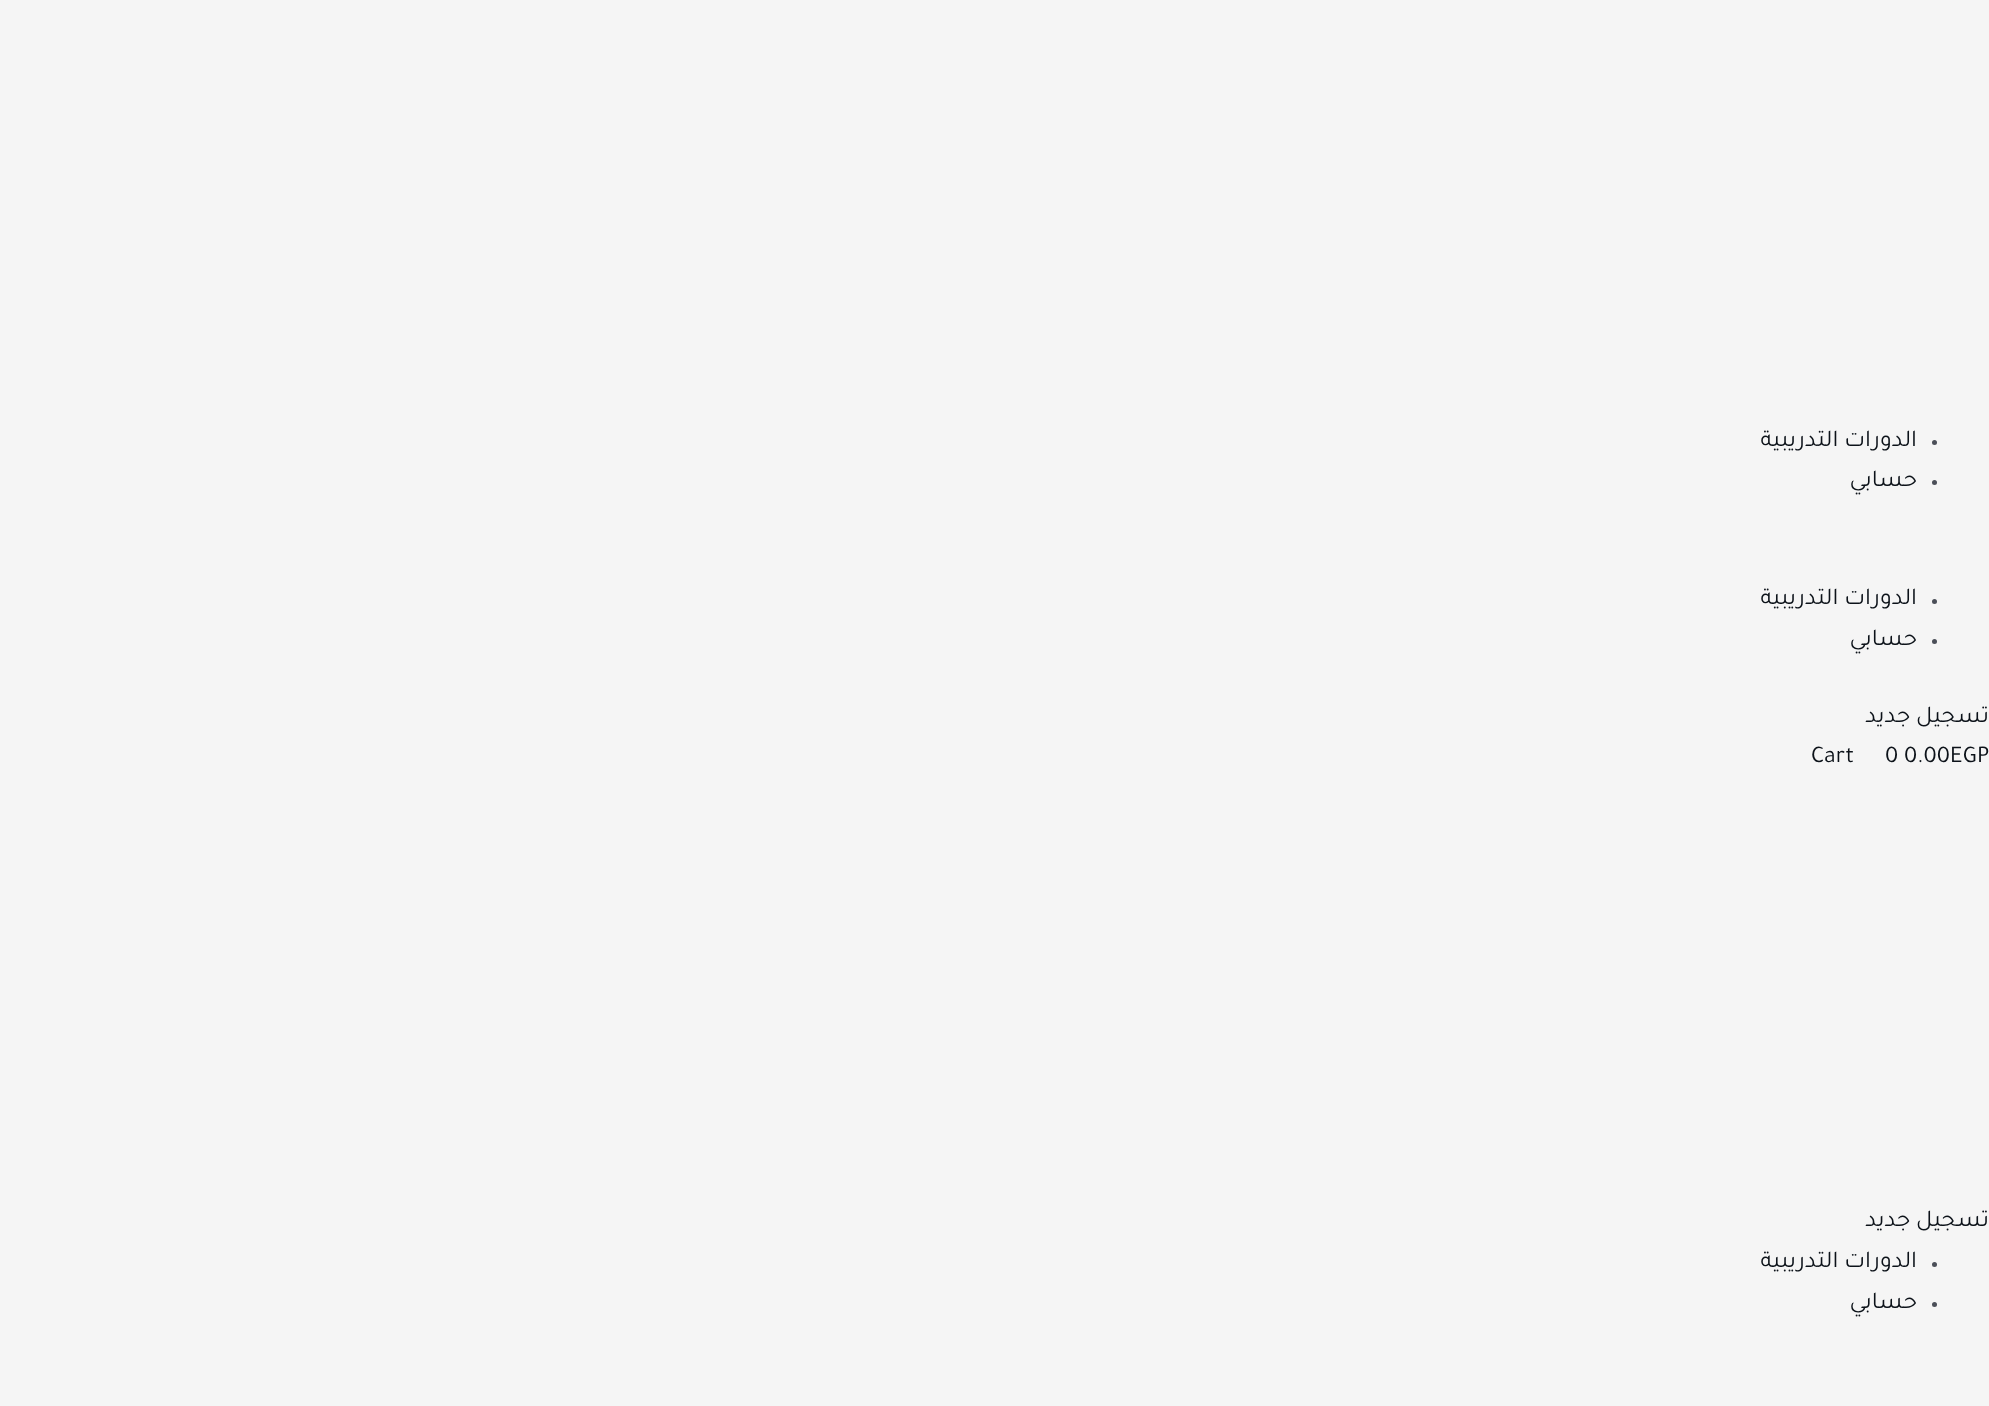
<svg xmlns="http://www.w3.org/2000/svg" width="1989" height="1406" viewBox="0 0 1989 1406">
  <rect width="100%" height="100%" fill="rgb(245,245,245)"/>
  <circle cx="1934.5" cy="442.5" r="2.5" fill="rgb(75,79,88)"/>
  <text x="1917" y="446" font-family="Tajawal" font-size="24" direction="rtl" fill="rgb(12,18,25)">الدورات التدريبية</text>
  <circle cx="1934.5" cy="482.5" r="2.5" fill="rgb(75,79,88)"/>
  <text x="1917" y="486" font-family="Tajawal" font-size="24" direction="rtl" fill="rgb(12,18,25)">حسابي</text>
  <circle cx="1934.5" cy="601.5" r="2.5" fill="rgb(75,79,88)"/>
  <text x="1917" y="604" font-family="Tajawal" font-size="24" direction="rtl" fill="rgb(12,18,25)">الدورات التدريبية</text>
  <circle cx="1934.5" cy="641.5" r="2.5" fill="rgb(75,79,88)"/>
  <g font-family="Tajawal" font-size="24" direction="rtl" fill="rgb(12,18,25)">
    <text x="1917" y="645">حسابي</text>
    <text x="1989" y="722">تسجيل جديد</text>
  </g>
  <g font-family="Tajawal" font-size="24" fill="rgb(12,18,25)">
    <text x="1904" y="762">0.00EGP</text>
    <text x="1885" y="762">0</text>
    <text x="1811" y="762">Cart</text>
  </g>
  <text x="1989" y="1226" font-family="Tajawal" font-size="24" direction="rtl" fill="rgb(12,18,25)">تسجيل جديد</text>
  <circle cx="1934.5" cy="1264.5" r="2.5" fill="rgb(75,79,88)"/>
  <text x="1917" y="1267" font-family="Tajawal" font-size="24" direction="rtl" fill="rgb(12,18,25)">الدورات التدريبية</text>
  <circle cx="1934.5" cy="1304.5" r="2.5" fill="rgb(75,79,88)"/>
  <text x="1917" y="1308" font-family="Tajawal" font-size="24" direction="rtl" fill="rgb(12,18,25)">حسابي</text>
</svg>
